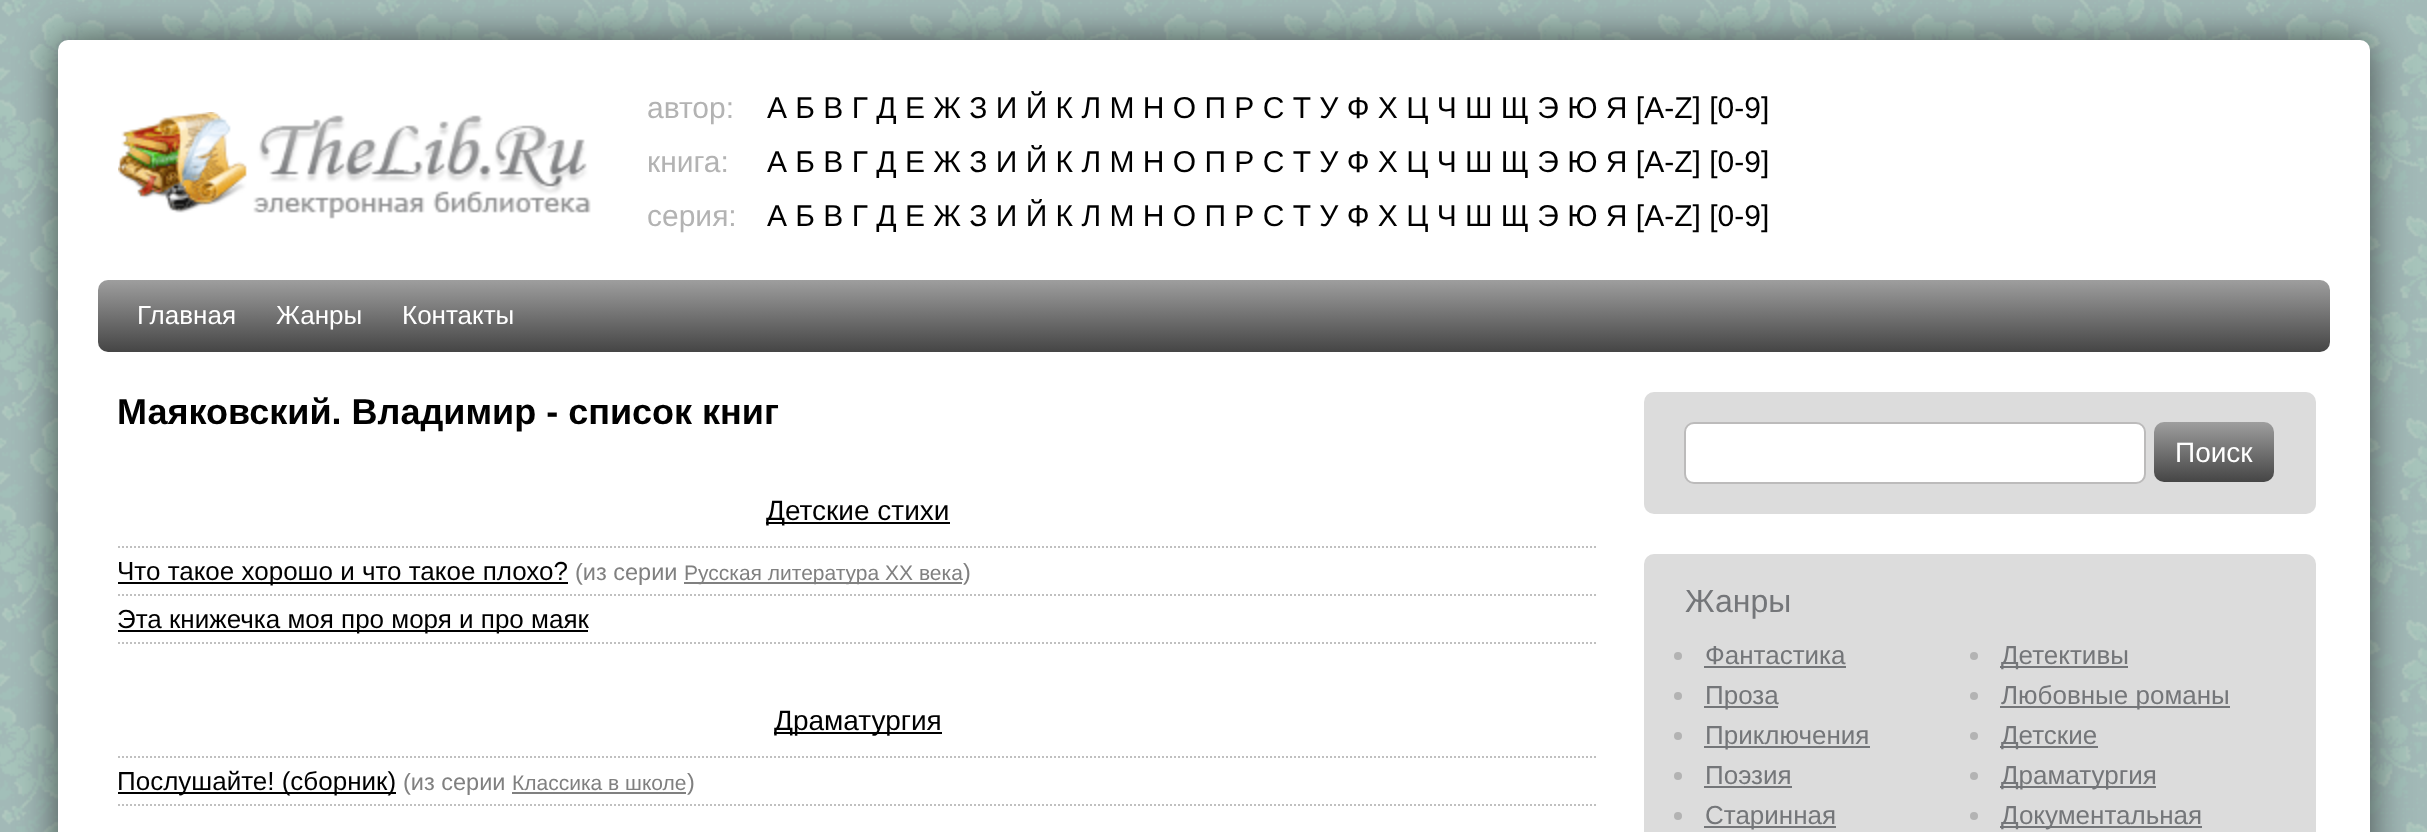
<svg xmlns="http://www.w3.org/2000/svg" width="2427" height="832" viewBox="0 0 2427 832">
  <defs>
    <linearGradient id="g1" gradientUnits="userSpaceOnUse" x1="1214" y1="280" x2="1214" y2="352"><stop offset="0" stop-color="rgb(158,158,158)"/><stop offset="1" stop-color="rgb(69,69,69)"/></linearGradient>
    <linearGradient id="g2" gradientUnits="userSpaceOnUse" x1="2214" y1="422" x2="2214" y2="482"><stop offset="0" stop-color="rgb(158,158,158)"/><stop offset="1" stop-color="rgb(69,69,69)"/></linearGradient>
  </defs>
  <rect width="100%" height="100%" fill="rgb(255,255,255)"/>
  <image x="0" y="0" width="2427" height="832" href="pic1.png"/>
  <rect x="58" y="40" width="2312" height="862" rx="10" fill="rgba(0,0,0,0.6)" filter="blur(20px)"/>
  <rect x="58" y="40" width="2312" height="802" rx="10" fill="rgb(255,255,255)"/>
  <image x="118" y="112" width="473" height="107" href="pic2.png"/>
  <text x="647" y="118" font-family="Liberation Sans" font-size="30" fill="rgb(179,179,179)">автор:</text>
  <text x="767" y="118" font-family="Liberation Sans" font-size="30" fill="rgb(0,0,0)">А Б В Г Д Е Ж З И Й К Л М Н О П Р С Т У Ф Х Ц Ч Ш Щ Э Ю Я [A-Z] [0-9]</text>
  <text x="647" y="172" font-family="Liberation Sans" font-size="30" fill="rgb(179,179,179)">книга:</text>
  <text x="767" y="172" font-family="Liberation Sans" font-size="30" fill="rgb(0,0,0)">А Б В Г Д Е Ж З И Й К Л М Н О П Р С Т У Ф Х Ц Ч Ш Щ Э Ю Я [A-Z] [0-9]</text>
  <text x="647" y="226" font-family="Liberation Sans" font-size="30" fill="rgb(179,179,179)">серия:</text>
  <text x="767" y="226" font-family="Liberation Sans" font-size="30" fill="rgb(0,0,0)">А Б В Г Д Е Ж З И Й К Л М Н О П Р С Т У Ф Х Ц Ч Ш Щ Э Ю Я [A-Z] [0-9]</text>
  <rect x="98" y="280" width="2232" height="72" rx="10" fill="url(#g1)"/>
  <g font-family="Liberation Sans" font-size="26" fill="rgb(255,255,255)">
    <text x="137" y="324">Главная</text>
    <text x="276" y="324">Жанры</text>
    <text x="402" y="324">Контакты</text>
  </g>
  <text x="117" y="424" font-family="Liberation Sans" font-size="36" font-weight="bold" fill="rgb(0,0,0)">Маяковский. Владимир - список книг</text>
  <rect x="766" y="522" width="184" height="2" fill="rgb(0,0,0)"/>
  <text x="766" y="520" font-family="Liberation Sans" font-size="28" fill="rgb(0,0,0)">Детские стихи</text>
  <path d="M118 547H1598" fill="none" stroke="rgb(192,192,192)" stroke-width="2" stroke-dasharray="2 2"/>
  <path d="M118 595H1598" fill="none" stroke="rgb(192,192,192)" stroke-width="2" stroke-dasharray="2 2"/>
  <rect x="118" y="582" width="450" height="2" fill="rgb(0,0,0)"/>
  <text x="117" y="580" font-family="Liberation Sans" font-size="26" fill="rgb(0,0,0)">Что такое хорошо и что такое плохо?</text>
  <text x="575" y="580" font-family="Liberation Sans" font-size="23.5" fill="rgb(128,128,128)">(из серии</text>
  <rect x="684" y="582" width="278" height="2" fill="rgb(128,128,128)"/>
  <text x="684" y="580" font-family="Liberation Sans" font-size="21" fill="rgb(128,128,128)">Русская литература XX века</text>
  <text x="963" y="580" font-family="Liberation Sans" font-size="23.5" fill="rgb(128,128,128)">)</text>
  <path d="M118 643H1598" fill="none" stroke="rgb(192,192,192)" stroke-width="2" stroke-dasharray="2 2"/>
  <rect x="118" y="630" width="470" height="2" fill="rgb(0,0,0)"/>
  <text x="117" y="628" font-family="Liberation Sans" font-size="26" fill="rgb(0,0,0)">Эта книжечка моя про моря и про маяк</text>
  <rect x="774" y="732" width="168" height="2" fill="rgb(0,0,0)"/>
  <text x="774" y="730" font-family="Liberation Sans" font-size="28" fill="rgb(0,0,0)">Драматургия</text>
  <path d="M118 757H1598" fill="none" stroke="rgb(192,192,192)" stroke-width="2" stroke-dasharray="2 2"/>
  <path d="M118 805H1598" fill="none" stroke="rgb(192,192,192)" stroke-width="2" stroke-dasharray="2 2"/>
  <rect x="118" y="792" width="278" height="2" fill="rgb(0,0,0)"/>
  <text x="117" y="790" font-family="Liberation Sans" font-size="26" fill="rgb(0,0,0)">Послушайте! (сборник)</text>
  <text x="403" y="790" font-family="Liberation Sans" font-size="23.5" fill="rgb(128,128,128)">(из серии</text>
  <text x="512" y="790" font-family="Liberation Sans" font-size="21" fill="rgb(128,128,128)">Классика в школе</text>
  <text x="687" y="790" font-family="Liberation Sans" font-size="23.5" fill="rgb(128,128,128)">)</text>
  <rect x="512" y="792" width="174" height="2" fill="rgb(128,128,128)"/>
  <rect x="1644" y="392" width="672" height="122" rx="10" fill="rgb(220,220,220)"/>
  <rect x="1685" y="423" width="460" height="60" rx="9" fill="rgb(255,255,255)" stroke="rgb(188,187,187)" stroke-width="2"/>
  <rect x="2154" y="422" width="120" height="60" rx="10" fill="url(#g2)"/>
  <text x="2175" y="462" font-family="Liberation Sans" font-size="28" fill="rgb(255,255,255)">Поиск</text>
  <rect x="1644" y="554" width="672" height="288" rx="10" fill="rgb(220,220,220)"/>
  <text x="1685" y="612" font-family="Liberation Sans" font-size="32" fill="rgb(116,118,121)">Жанры</text>
  <circle cx="1678" cy="656" r="4" fill="rgb(179,179,179)"/>
  <text x="1705" y="664" font-family="Liberation Sans" font-size="26" fill="rgb(116,118,121)">Фантастика</text>
  <rect x="1704" y="666" width="142" height="2" fill="rgb(116,118,121)"/>
  <circle cx="1974" cy="656" r="4" fill="rgb(179,179,179)"/>
  <rect x="2000" y="666" width="128" height="2" fill="rgb(116,118,121)"/>
  <text x="2001" y="664" font-family="Liberation Sans" font-size="26" fill="rgb(116,118,121)">Детективы</text>
  <circle cx="1678" cy="696" r="4" fill="rgb(179,179,179)"/>
  <rect x="1704" y="706" width="74" height="2" fill="rgb(116,118,121)"/>
  <text x="1705" y="704" font-family="Liberation Sans" font-size="26" fill="rgb(116,118,121)">Проза</text>
  <circle cx="1974" cy="696" r="4" fill="rgb(179,179,179)"/>
  <rect x="2000" y="706" width="230" height="2" fill="rgb(116,118,121)"/>
  <text x="2001" y="704" font-family="Liberation Sans" font-size="26" fill="rgb(116,118,121)">Любовные романы</text>
  <circle cx="1678" cy="736" r="4" fill="rgb(179,179,179)"/>
  <rect x="1704" y="746" width="166" height="2" fill="rgb(116,118,121)"/>
  <text x="1705" y="744" font-family="Liberation Sans" font-size="26" fill="rgb(116,118,121)">Приключения</text>
  <circle cx="1974" cy="736" r="4" fill="rgb(179,179,179)"/>
  <rect x="2000" y="746" width="98" height="2" fill="rgb(116,118,121)"/>
  <text x="2001" y="744" font-family="Liberation Sans" font-size="26" fill="rgb(116,118,121)">Детские</text>
  <circle cx="1678" cy="776" r="4" fill="rgb(179,179,179)"/>
  <text x="1705" y="784" font-family="Liberation Sans" font-size="26" fill="rgb(116,118,121)">Поэзия</text>
  <rect x="1704" y="786" width="88" height="2" fill="rgb(116,118,121)"/>
  <circle cx="1974" cy="776" r="4" fill="rgb(179,179,179)"/>
  <rect x="2000" y="786" width="156" height="2" fill="rgb(116,118,121)"/>
  <text x="2001" y="784" font-family="Liberation Sans" font-size="26" fill="rgb(116,118,121)">Драматургия</text>
  <circle cx="1678" cy="816" r="4" fill="rgb(179,179,179)"/>
  <rect x="1704" y="826" width="132" height="2" fill="rgb(116,118,121)"/>
  <text x="1705" y="824" font-family="Liberation Sans" font-size="26" fill="rgb(116,118,121)">Старинная</text>
  <circle cx="1974" cy="816" r="4" fill="rgb(179,179,179)"/>
  <rect x="2000" y="826" width="202" height="2" fill="rgb(116,118,121)"/>
  <text x="2001" y="824" font-family="Liberation Sans" font-size="26" fill="rgb(116,118,121)">Документальная</text>
</svg>
